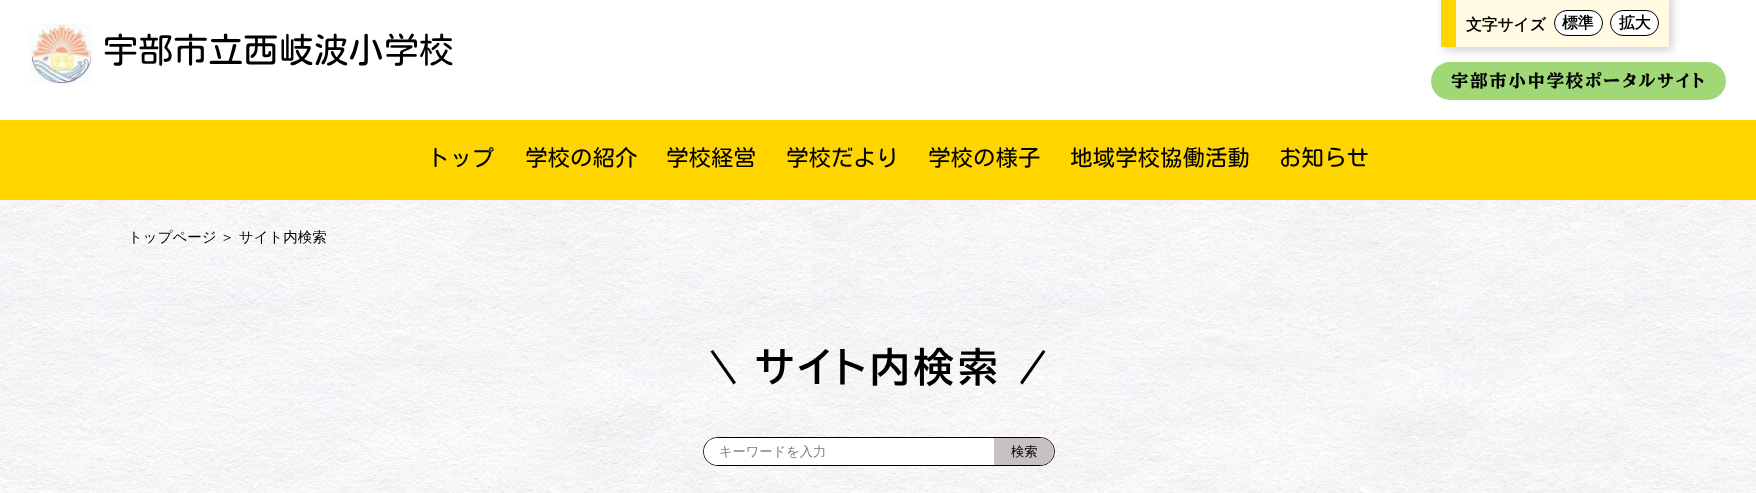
<svg xmlns="http://www.w3.org/2000/svg" width="1756" height="493" viewBox="0 0 1756 493">
  <rect width="100%" height="100%" fill="rgb(255,255,255)"/>
  <image x="0" y="200" width="1756" height="293" href="pic1.png"/>
  <image x="30" y="24" width="63" height="60" href="pic2.png"/>
  <text x="103" y="63" font-family="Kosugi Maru" font-size="35.1" fill="rgb(0,0,0)">宇部市立西岐波小学校</text>
  <rect x="1444" y="-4" width="228" height="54" fill="rgb(206,206,206)" filter="blur(5px)"/>
  <rect x="1456" y="0" width="213" height="47" fill="rgb(255,250,225)"/>
  <rect x="1441" y="0" width="15" height="47" fill="rgb(255,213,0)"/>
  <text x="1466" y="30" font-family="WenQuanYi Zen Hei" font-size="15.75" font-weight="bold" fill="rgb(0,0,0)">文字サイズ</text>
  <rect x="1554.5" y="10.5" width="48" height="25" rx="12.5" fill="rgb(255,255,255)" stroke="rgb(0,0,0)"/>
  <text x="1562" y="28" font-family="WenQuanYi Zen Hei" font-size="15.75" font-weight="bold" fill="rgb(0,0,0)">標準</text>
  <rect x="1610.5" y="10.5" width="48" height="25" rx="12.5" fill="rgb(255,255,255)" stroke="rgb(0,0,0)"/>
  <text x="1619" y="28" font-family="WenQuanYi Zen Hei" font-size="15.75" font-weight="bold" fill="rgb(0,0,0)">拡大</text>
  <rect x="1431" y="62" width="295" height="38" rx="19" fill="rgb(160,216,120)"/>
  <text x="1451" y="87" font-family="BIZ UDPMincho" font-size="17.4" font-weight="bold" letter-spacing="1.75" fill="rgb(0,0,0)">宇部市小中学校ポータルサイト</text>
  <rect x="0" y="120" width="1756" height="80" fill="rgb(255,213,0)"/>
  <g font-family="Kosugi Maru" font-size="22.5" fill="rgb(0,0,0)">
    <text x="427" y="166">トップ</text>
    <text x="525" y="166">学校の紹介</text>
    <text x="666" y="166">学校経営</text>
    <text x="786" y="166">学校だより</text>
    <text x="928" y="166">学校の様子</text>
    <text x="1070" y="166">地域学校協働活動</text>
    <text x="1279" y="166">お知らせ</text>
  </g>
  <g font-family="WenQuanYi Zen Hei" font-size="14.5" font-weight="500" fill="rgb(0,0,0)">
    <text x="128" y="242">トップページ</text>
    <text x="220" y="242">＞ サイト内検索</text>
  </g>
  <path d="M710.5 351.5L713 350L736 382.5L733.5 384.5Z" fill="rgb(0,0,0)"/>
  <text x="755" y="382" font-family="BIZ UDPGothic" font-size="40" font-weight="bold" letter-spacing="4" fill="rgb(0,0,0)">サイト内検索</text>
  <path d="M1043 350L1045.5 351.5L1022.5 384.5L1020 382.5Z" fill="rgb(0,0,0)"/>
  <rect x="703.5" y="437.5" width="351" height="28" rx="14" fill="none" stroke="rgb(0,0,0)"/>
  <path d="M717.5 438H1004V465H717.5C710 465 704 459 704 451.5C704 444 710 438 717.5 438Z" fill="rgb(255,255,255)"/>
  <text x="719" y="456" font-family="WenQuanYi Zen Hei" font-size="13.25" font-weight="500" fill="rgb(118,125,131)">キーワードを入力</text>
  <path d="M994 438H1040.5C1048 438 1054 444 1054 451.5C1054 459 1048 465 1040.5 465H994Z" fill="rgb(199,193,193)"/>
  <text x="1011" y="456" font-family="WenQuanYi Zen Hei" font-size="13.25" font-weight="500" fill="rgb(0,0,0)">検索</text>
</svg>
